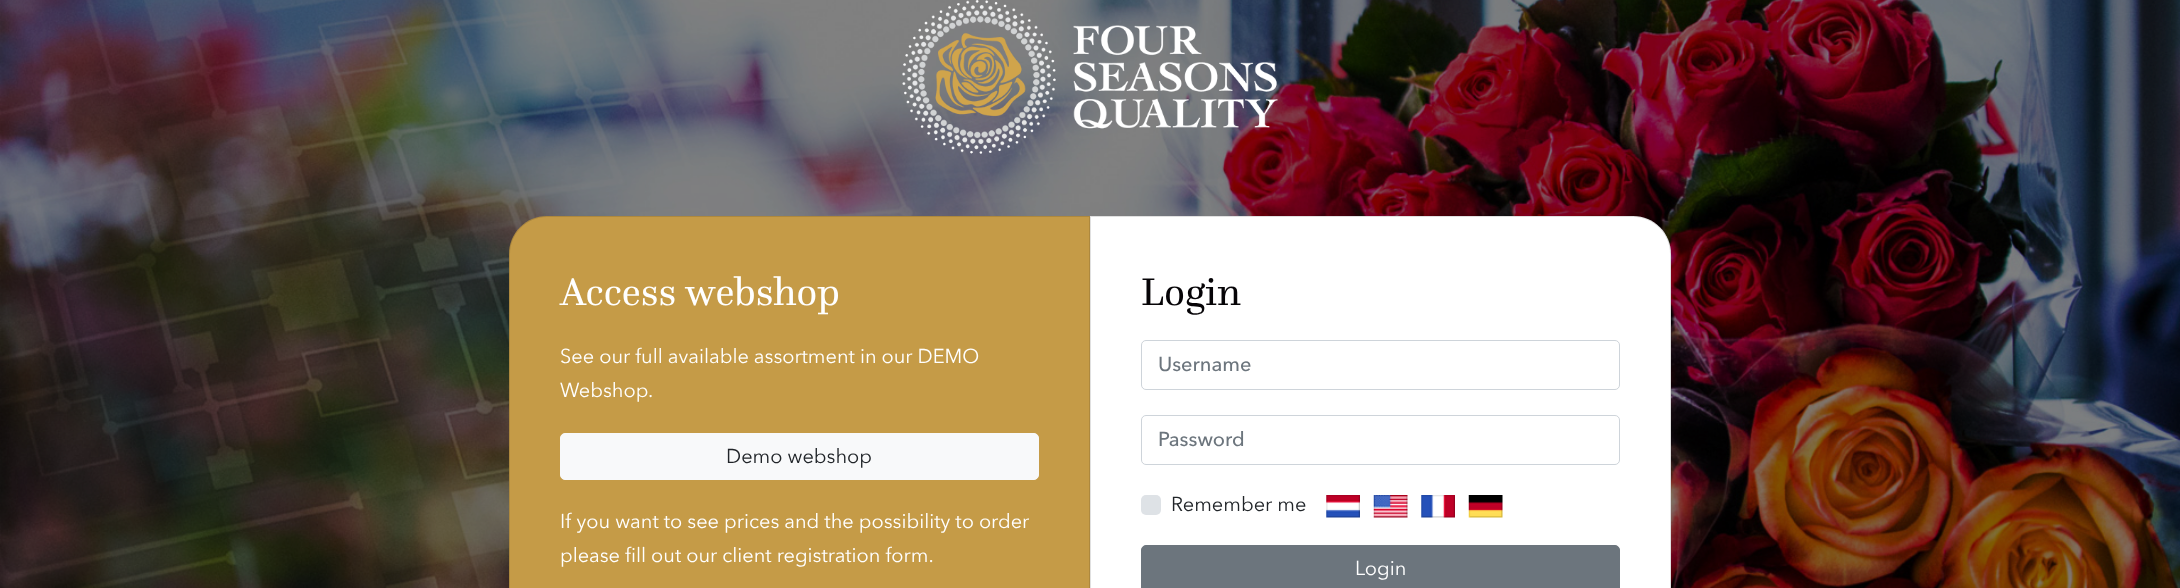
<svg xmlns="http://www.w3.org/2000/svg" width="2180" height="588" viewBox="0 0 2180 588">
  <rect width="100%" height="100%" fill="rgb(255,255,255)"/>
  <image x="0" y="0" width="2180" height="588" href="pic1.png"/>
  <image x="902" y="0" width="376" height="154" href="pic2.png"/>
  <path d="M547 216H1090V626H547C526 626 509 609 509 588V254C509 233 526 216 547 216Z" fill="rgb(197,155,71)"/>
  <path d="M547 216.5H1089.5V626.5H547C526.5 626.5 509.5 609.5 509.5 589V254C509.5 233.5 526.5 216.5 547 216.5Z" fill="none" stroke="rgba(0,0,0,0.12)"/>
  <text x="560" y="305" font-family="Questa" font-size="40" fill="rgb(255,255,255)">Access webshop</text>
  <g font-family="Avenir Next" font-size="20" fill="rgb(255,255,255)">
    <text>
      <tspan x="560" y="363">See our full available assortment in our DEMO</tspan>
      <tspan x="560" y="397">Webshop.</tspan>
    </text>
  </g>
  <rect x="560.5" y="433.5" width="478" height="46" rx="4.5" fill="rgb(248,249,250)" stroke="rgb(248,249,250)"/>
  <text x="726" y="463" font-family="Avenir Next" font-size="20" fill="rgb(33,37,41)">Demo webshop</text>
  <g font-family="Avenir Next" font-size="20" fill="rgb(255,255,255)">
    <text>
      <tspan x="560" y="528">If you want to see prices and the possibility to order</tspan>
      <tspan x="560" y="562">please fill out our client registration form.</tspan>
    </text>
  </g>
  <path d="M1090 216H1633C1654 216 1671 233 1671 254V588C1671 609 1654 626 1633 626H1090Z" fill="rgb(255,255,255)"/>
  <path d="M1090.5 216.5H1633C1653.5 216.5 1670.5 233.5 1670.5 254V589C1670.5 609.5 1653.5 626.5 1633 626.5H1090.5Z" fill="none" stroke="rgba(0,0,0,0.12)"/>
  <text x="1141" y="305" font-family="Questa" font-size="40" fill="rgb(6,4,7)">Login</text>
  <rect x="1141.5" y="340.5" width="478" height="49" rx="4.5" fill="none" stroke="rgb(206,212,218)"/>
  <text x="1158" y="371" font-family="Avenir Next" font-size="20" font-weight="500" fill="rgb(108,117,125)">Username</text>
  <rect x="1141.5" y="415.5" width="478" height="49" rx="4.5" fill="none" stroke="rgb(206,212,218)"/>
  <text x="1158" y="446" font-family="Avenir Next" font-size="20" font-weight="500" fill="rgb(108,117,125)">Password</text>
  <rect x="1141" y="495" width="20" height="20" rx="5" fill="rgb(222,226,230)"/>
  <text x="1171" y="511" font-family="Avenir Next" font-size="20" fill="rgb(33,37,41)">Remember me</text>
  <image x="1326" y="495" width="34" height="23" href="pic3.png"/>
  <image x="1373" y="495" width="35" height="23" href="pic4.png"/>
  <image x="1421" y="495" width="34" height="23" href="pic5.png"/>
  <image x="1468" y="495" width="35" height="23" href="pic6.png"/>
  <rect x="1141.5" y="545.5" width="478" height="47" rx="4.5" fill="rgb(108,117,125)" stroke="rgb(108,117,125)"/>
  <text x="1355" y="575" font-family="Avenir Next" font-size="20" fill="rgb(255,255,255)">Login</text>
</svg>
